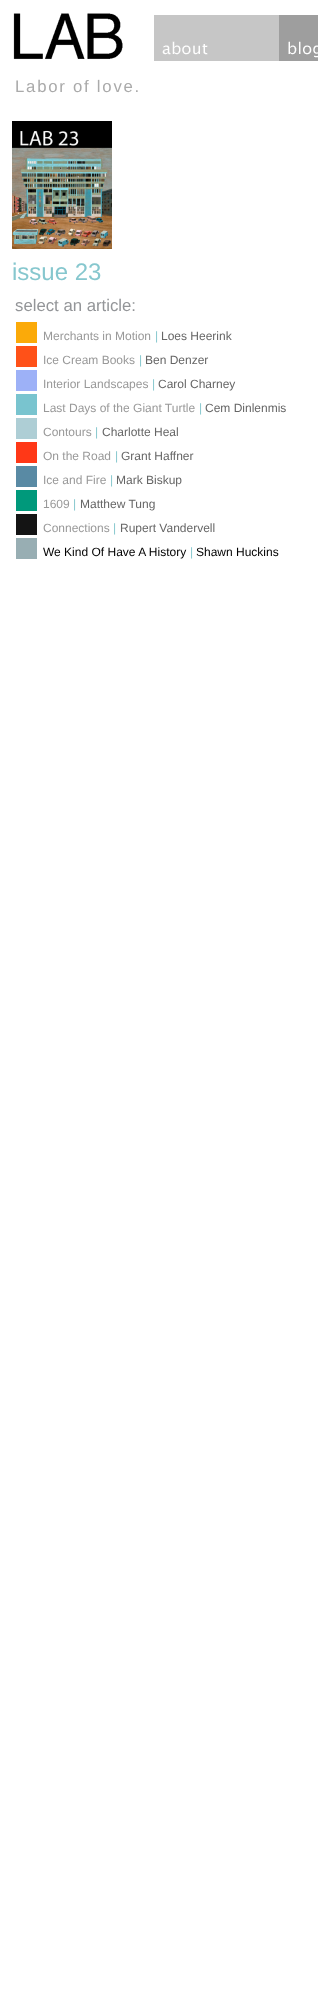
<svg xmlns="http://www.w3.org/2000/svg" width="318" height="2001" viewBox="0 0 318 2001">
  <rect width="100%" height="100%" fill="rgb(255,255,255)"/>
  <image x="13" y="13" width="110" height="47" href="pic1.png"/>
  <image x="154" y="15" width="125" height="46" href="pic2.png"/>
  <image x="279" y="15" width="39" height="46" href="pic3.png"/>
  <text x="15" y="92" font-family="Liberation Sans" font-size="16.75" letter-spacing="1.75" fill="rgb(170,170,170)">Labor of love.</text>
  <image x="12" y="121" width="100" height="128" href="pic4.png"/>
  <text x="12" y="280" font-family="Liberation Sans" font-size="24" fill="rgb(134,199,206)">issue 23</text>
  <text x="15" y="311" font-family="Liberation Sans" font-size="16.75" fill="rgb(147,149,152)">select an article:</text>
  <rect x="16" y="322" width="21" height="21" fill="rgb(251,170,9)"/>
  <text x="43" y="340" font-family="Liberation Sans" font-size="12" fill="rgb(153,153,153)">Merchants in Motion</text>
  <text x="155" y="340" font-family="Liberation Sans" font-size="12" fill="rgb(134,199,206)">|</text>
  <text x="161" y="340" font-family="Liberation Sans" font-size="12" fill="rgb(102,102,102)">Loes Heerink</text>
  <rect x="16" y="346" width="21" height="21" fill="rgb(255,81,24)"/>
  <text x="43" y="364" font-family="Liberation Sans" font-size="12" fill="rgb(153,153,153)">Ice Cream Books</text>
  <text x="139" y="364" font-family="Liberation Sans" font-size="12" fill="rgb(134,199,206)">|</text>
  <text x="145" y="364" font-family="Liberation Sans" font-size="12" fill="rgb(102,102,102)">Ben Denzer</text>
  <rect x="16" y="370" width="21" height="21" fill="rgb(157,177,247)"/>
  <text x="43" y="388" font-family="Liberation Sans" font-size="12" fill="rgb(153,153,153)">Interior Landscapes</text>
  <text x="152" y="388" font-family="Liberation Sans" font-size="12" fill="rgb(134,199,206)">|</text>
  <text x="158" y="388" font-family="Liberation Sans" font-size="12" fill="rgb(102,102,102)">Carol Charney</text>
  <rect x="16" y="394" width="21" height="21" fill="rgb(121,196,207)"/>
  <text x="43" y="412" font-family="Liberation Sans" font-size="12" fill="rgb(153,153,153)">Last Days of the Giant Turtle</text>
  <text x="199" y="412" font-family="Liberation Sans" font-size="12" fill="rgb(134,199,206)">|</text>
  <text x="205" y="412" font-family="Liberation Sans" font-size="12" fill="rgb(102,102,102)">Cem Dinlenmis</text>
  <rect x="16" y="418" width="21" height="21" fill="rgb(174,206,213)"/>
  <text x="43" y="436" font-family="Liberation Sans" font-size="12" fill="rgb(153,153,153)">Contours</text>
  <text x="95" y="436" font-family="Liberation Sans" font-size="12" fill="rgb(134,199,206)">|</text>
  <text x="102" y="436" font-family="Liberation Sans" font-size="12" fill="rgb(102,102,102)">Charlotte Heal</text>
  <rect x="16" y="442" width="21" height="21" fill="rgb(255,56,23)"/>
  <text x="43" y="460" font-family="Liberation Sans" font-size="12" fill="rgb(153,153,153)">On the Road</text>
  <text x="115" y="460" font-family="Liberation Sans" font-size="12" fill="rgb(134,199,206)">|</text>
  <text x="121" y="460" font-family="Liberation Sans" font-size="12" fill="rgb(102,102,102)">Grant Haffner</text>
  <rect x="16" y="466" width="21" height="21" fill="rgb(89,138,164)"/>
  <text x="43" y="484" font-family="Liberation Sans" font-size="12" fill="rgb(153,153,153)">Ice and Fire</text>
  <text x="110" y="484" font-family="Liberation Sans" font-size="12" fill="rgb(134,199,206)">|</text>
  <text x="116" y="484" font-family="Liberation Sans" font-size="12" fill="rgb(102,102,102)">Mark Biskup</text>
  <rect x="16" y="490" width="21" height="21" fill="rgb(0,153,123)"/>
  <text x="43" y="508" font-family="Liberation Sans" font-size="12" fill="rgb(153,153,153)">1609</text>
  <text x="73" y="508" font-family="Liberation Sans" font-size="12" fill="rgb(134,199,206)">|</text>
  <text x="80" y="508" font-family="Liberation Sans" font-size="12" fill="rgb(102,102,102)">Matthew Tung</text>
  <rect x="16" y="514" width="21" height="21" fill="rgb(20,20,20)"/>
  <text x="43" y="532" font-family="Liberation Sans" font-size="12" fill="rgb(153,153,153)">Connections</text>
  <text x="113" y="532" font-family="Liberation Sans" font-size="12" fill="rgb(134,199,206)">|</text>
  <text x="120" y="532" font-family="Liberation Sans" font-size="12" fill="rgb(102,102,102)">Rupert Vandervell</text>
  <rect x="16" y="538" width="21" height="21" fill="rgb(152,174,179)"/>
  <text x="43" y="556" font-family="Liberation Sans" font-size="12" fill="rgb(0,0,0)">We Kind Of Have A History</text>
  <text x="190" y="556" font-family="Liberation Sans" font-size="12" fill="rgb(134,199,206)">|</text>
  <text x="196" y="556" font-family="Liberation Sans" font-size="12" fill="rgb(0,0,0)">Shawn Huckins</text>
</svg>
